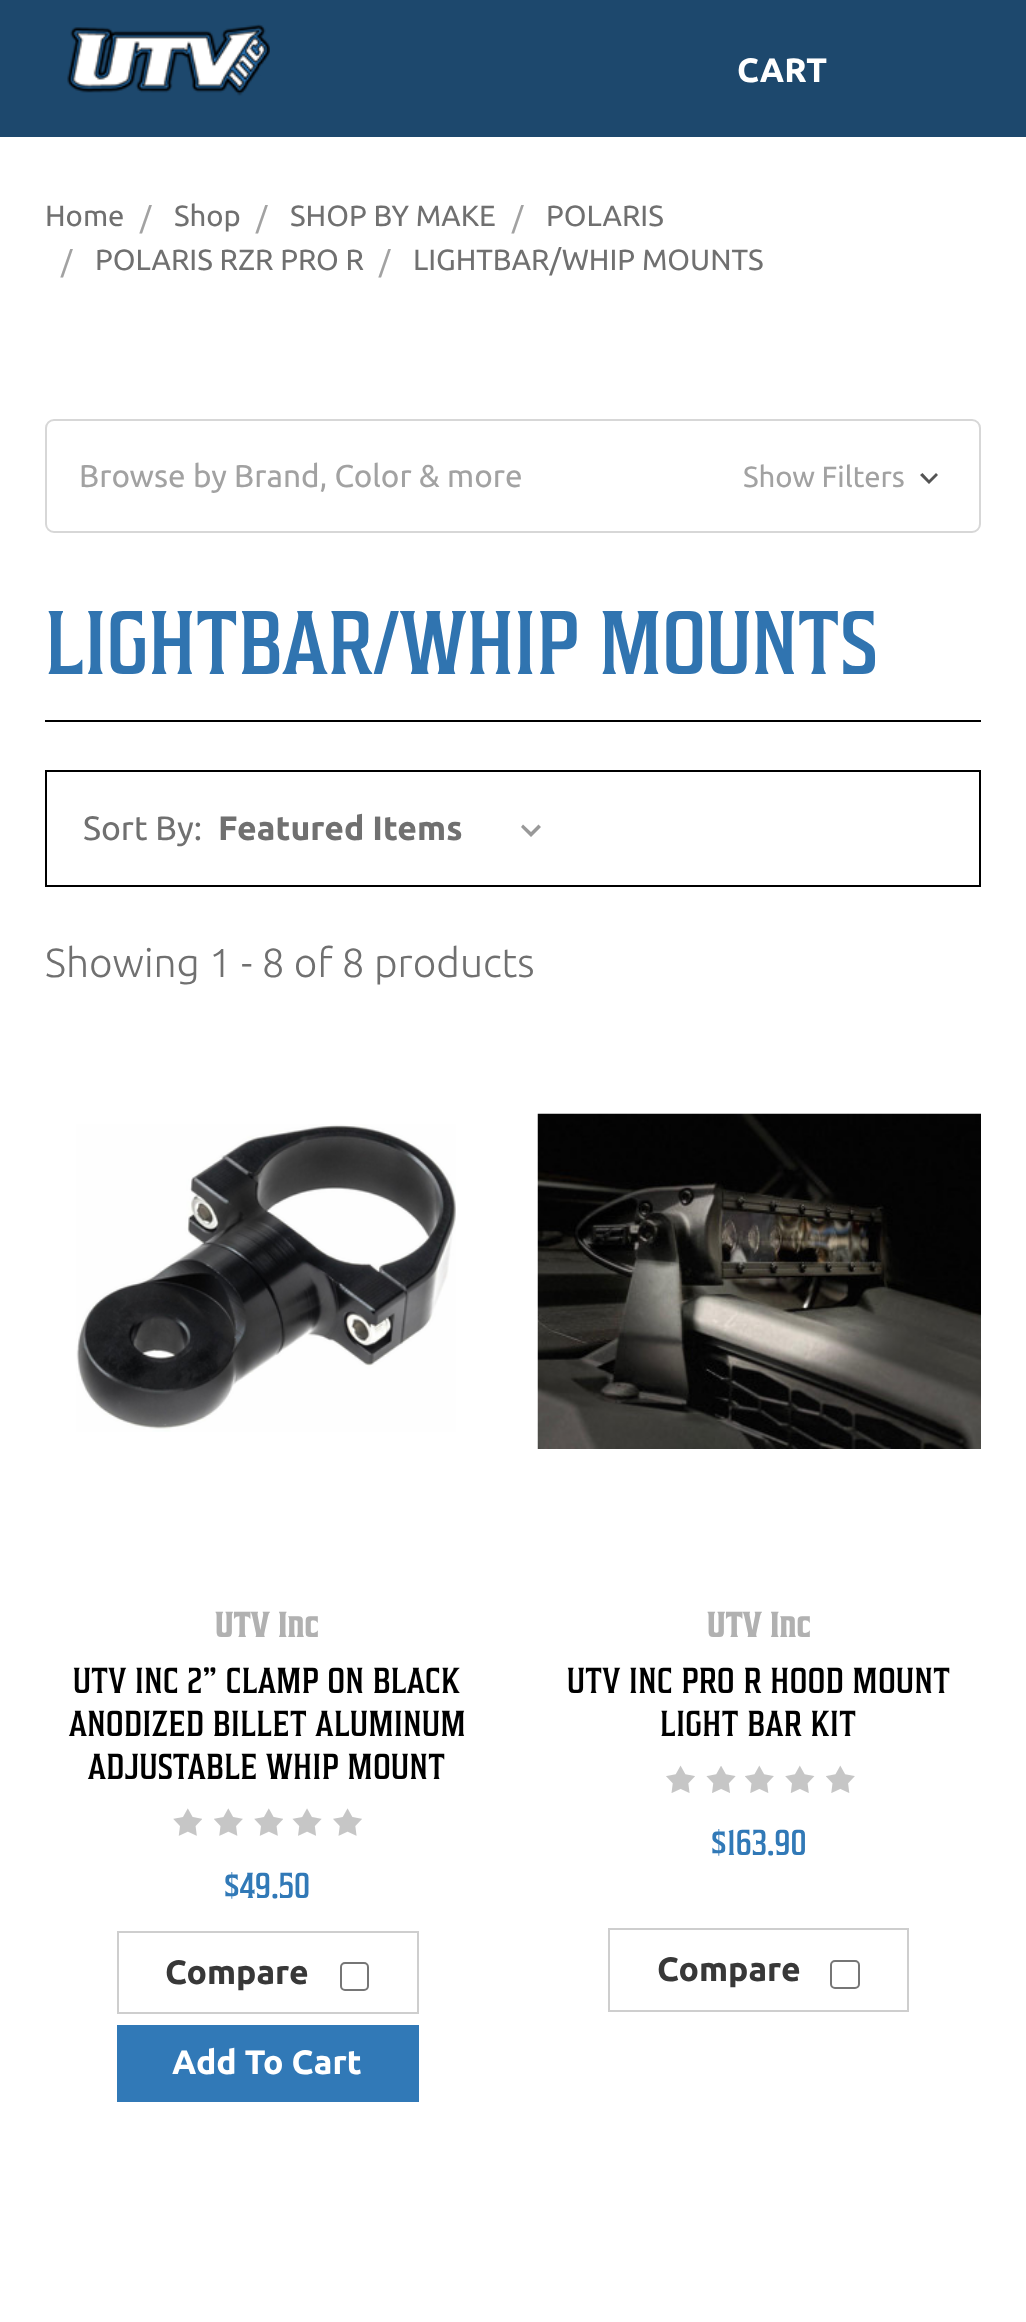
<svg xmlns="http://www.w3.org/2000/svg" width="1026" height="2322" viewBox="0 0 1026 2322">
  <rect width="100%" height="100%" fill="rgb(255,255,255)"/>
  <rect x="0" y="0" width="1026" height="137" fill="rgb(29,72,109)"/>
  <image x="67" y="24" width="203" height="72" href="pic1.png"/>
  <text x="737" y="82" font-family="Ubuntu" font-size="33.75" font-weight="bold" fill="rgb(255,255,255)">CART</text>
  <text x="45" y="226" font-family="Ubuntu" font-size="29.25" fill="rgb(112,112,112)">Home</text>
  <text x="140" y="228" font-family="Ubuntu" font-size="29.25" fill="rgb(162,162,162)">/</text>
  <text x="174" y="226" font-family="Ubuntu" font-size="29.25" fill="rgb(112,112,112)">Shop</text>
  <text x="256" y="228" font-family="Ubuntu" font-size="29.25" fill="rgb(162,162,162)">/</text>
  <text x="290" y="226" font-family="Ubuntu" font-size="29.25" fill="rgb(112,112,112)">SHOP BY MAKE</text>
  <text x="512" y="228" font-family="Ubuntu" font-size="29.25" fill="rgb(162,162,162)">/</text>
  <text x="546" y="226" font-family="Ubuntu" font-size="29.25" fill="rgb(112,112,112)">POLARIS</text>
  <text x="61" y="272" font-family="Ubuntu" font-size="29.25" fill="rgb(162,162,162)">/</text>
  <text x="95" y="270" font-family="Ubuntu" font-size="29.25" fill="rgb(112,112,112)">POLARIS RZR PRO R</text>
  <text x="379" y="272" font-family="Ubuntu" font-size="29.25" fill="rgb(162,162,162)">/</text>
  <text x="413" y="270" font-family="Ubuntu" font-size="29.25" fill="rgb(112,112,112)">LIGHTBAR/WHIP MOUNTS</text>
  <rect x="46" y="420" width="934" height="112" rx="8" fill="none" stroke="rgb(215,215,215)" stroke-width="2"/>
  <text x="79" y="487" font-family="Ubuntu" font-size="31.5" fill="rgb(162,162,162)">Browse by Brand, Color &amp; more</text>
  <text x="743" y="487" font-family="Ubuntu" font-size="29.25" fill="rgb(162,162,162)">Show Filters</text>
  <path d="M922.5 473L929 480L936 473L938 475L929 484L920 475Z" fill="rgb(84,84,84)"/>
  <rect x="45" y="720" width="936" height="2" fill="rgb(0,0,0)"/>
  <text x="45" y="674" font-family="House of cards" font-size="90" letter-spacing="0.55" fill="rgb(48,116,176)">LIGHTBAR/WHIP MOUNTS</text>
  <rect x="46" y="771" width="934" height="115" fill="none" stroke="rgb(0,0,0)" stroke-width="2"/>
  <text x="83" y="840" font-family="Ubuntu" font-size="33.75" fill="rgb(112,112,112)">Sort By:</text>
  <path d="M538.5 824.5L531 832L523 824.5L521 827L531 837L541 827Z" fill="rgb(153,153,153)"/>
  <text x="218" y="840" font-family="Ubuntu" font-size="33.75" font-weight="bold" fill="rgb(112,112,112)">Featured Items</text>
  <text x="45" y="977" font-family="Ubuntu" font-size="40.5" font-weight="300" fill="rgb(112,112,112)">Showing 1 - 8 of 8 products</text>
  <image x="76" y="1124" width="380" height="308" href="pic2.png"/>
  <text x="215" y="1637" font-family="House of cards" font-size="36" font-weight="bold" fill="rgb(177,177,177)">UTV Inc</text>
  <g font-family="House of cards" font-size="36" letter-spacing="0.55" fill="rgb(0,0,0)">
    <text x="73" y="1693">UTV INC 2” CLAMP ON BLACK</text>
    <text x="69" y="1736">ANODIZED BILLET ALUMINUM</text>
    <text x="88" y="1779">ADJUSTABLE WHIP MOUNT</text>
  </g>
  <image x="173" y="1808" width="29" height="28" href="pic3.png"/>
  <image x="214" y="1808" width="29" height="28" href="pic4.png"/>
  <image x="254" y="1808" width="29" height="28" href="pic3.png"/>
  <image x="292" y="1808" width="30" height="28" href="pic5.png"/>
  <image x="333" y="1808" width="29" height="28" href="pic6.png"/>
  <text x="224" y="1898" font-family="House of cards" font-size="36" fill="rgb(49,121,183)">$49.50</text>
  <rect x="118" y="1932" width="300" height="81" fill="none" stroke="rgb(206,206,206)" stroke-width="2"/>
  <text x="165" y="1984" font-family="Ubuntu" font-size="33.75" font-weight="bold" fill="rgb(56,56,56)">Compare</text>
  <rect x="341" y="1963" width="27" height="27" rx="4" fill="none" stroke="rgb(118,118,118)" stroke-width="2"/>
  <rect x="117" y="2025" width="302" height="77" fill="rgb(49,121,183)"/>
  <text x="172" y="2074" font-family="Ubuntu" font-size="33.75" font-weight="bold" fill="rgb(255,255,255)">Add To Cart</text>
  <image x="537" y="1113" width="444" height="336" href="pic7.png"/>
  <text x="707" y="1637" font-family="House of cards" font-size="36" font-weight="bold" fill="rgb(177,177,177)">UTV Inc</text>
  <g font-family="House of cards" font-size="36" letter-spacing="0.55" fill="rgb(0,0,0)">
    <text x="567" y="1693">UTV INC PRO R HOOD MOUNT</text>
    <text x="660" y="1736">LIGHT BAR KIT</text>
  </g>
  <image x="666" y="1765" width="29" height="28" href="pic8.png"/>
  <image x="706" y="1766" width="30" height="27" href="pic9.png"/>
  <image x="745" y="1765" width="29" height="28" href="pic10.png"/>
  <image x="785" y="1765" width="30" height="28" href="pic11.png"/>
  <image x="826" y="1765" width="29" height="28" href="pic10.png"/>
  <text x="711" y="1855" font-family="House of cards" font-size="36" fill="rgb(49,121,183)">$163.90</text>
  <rect x="609" y="1929" width="299" height="82" fill="none" stroke="rgb(206,206,206)" stroke-width="2"/>
  <text x="657" y="1981" font-family="Ubuntu" font-size="33.75" font-weight="bold" fill="rgb(56,56,56)">Compare</text>
  <rect x="831" y="1961" width="28" height="27" rx="4" fill="none" stroke="rgb(118,118,118)" stroke-width="2"/>
</svg>
